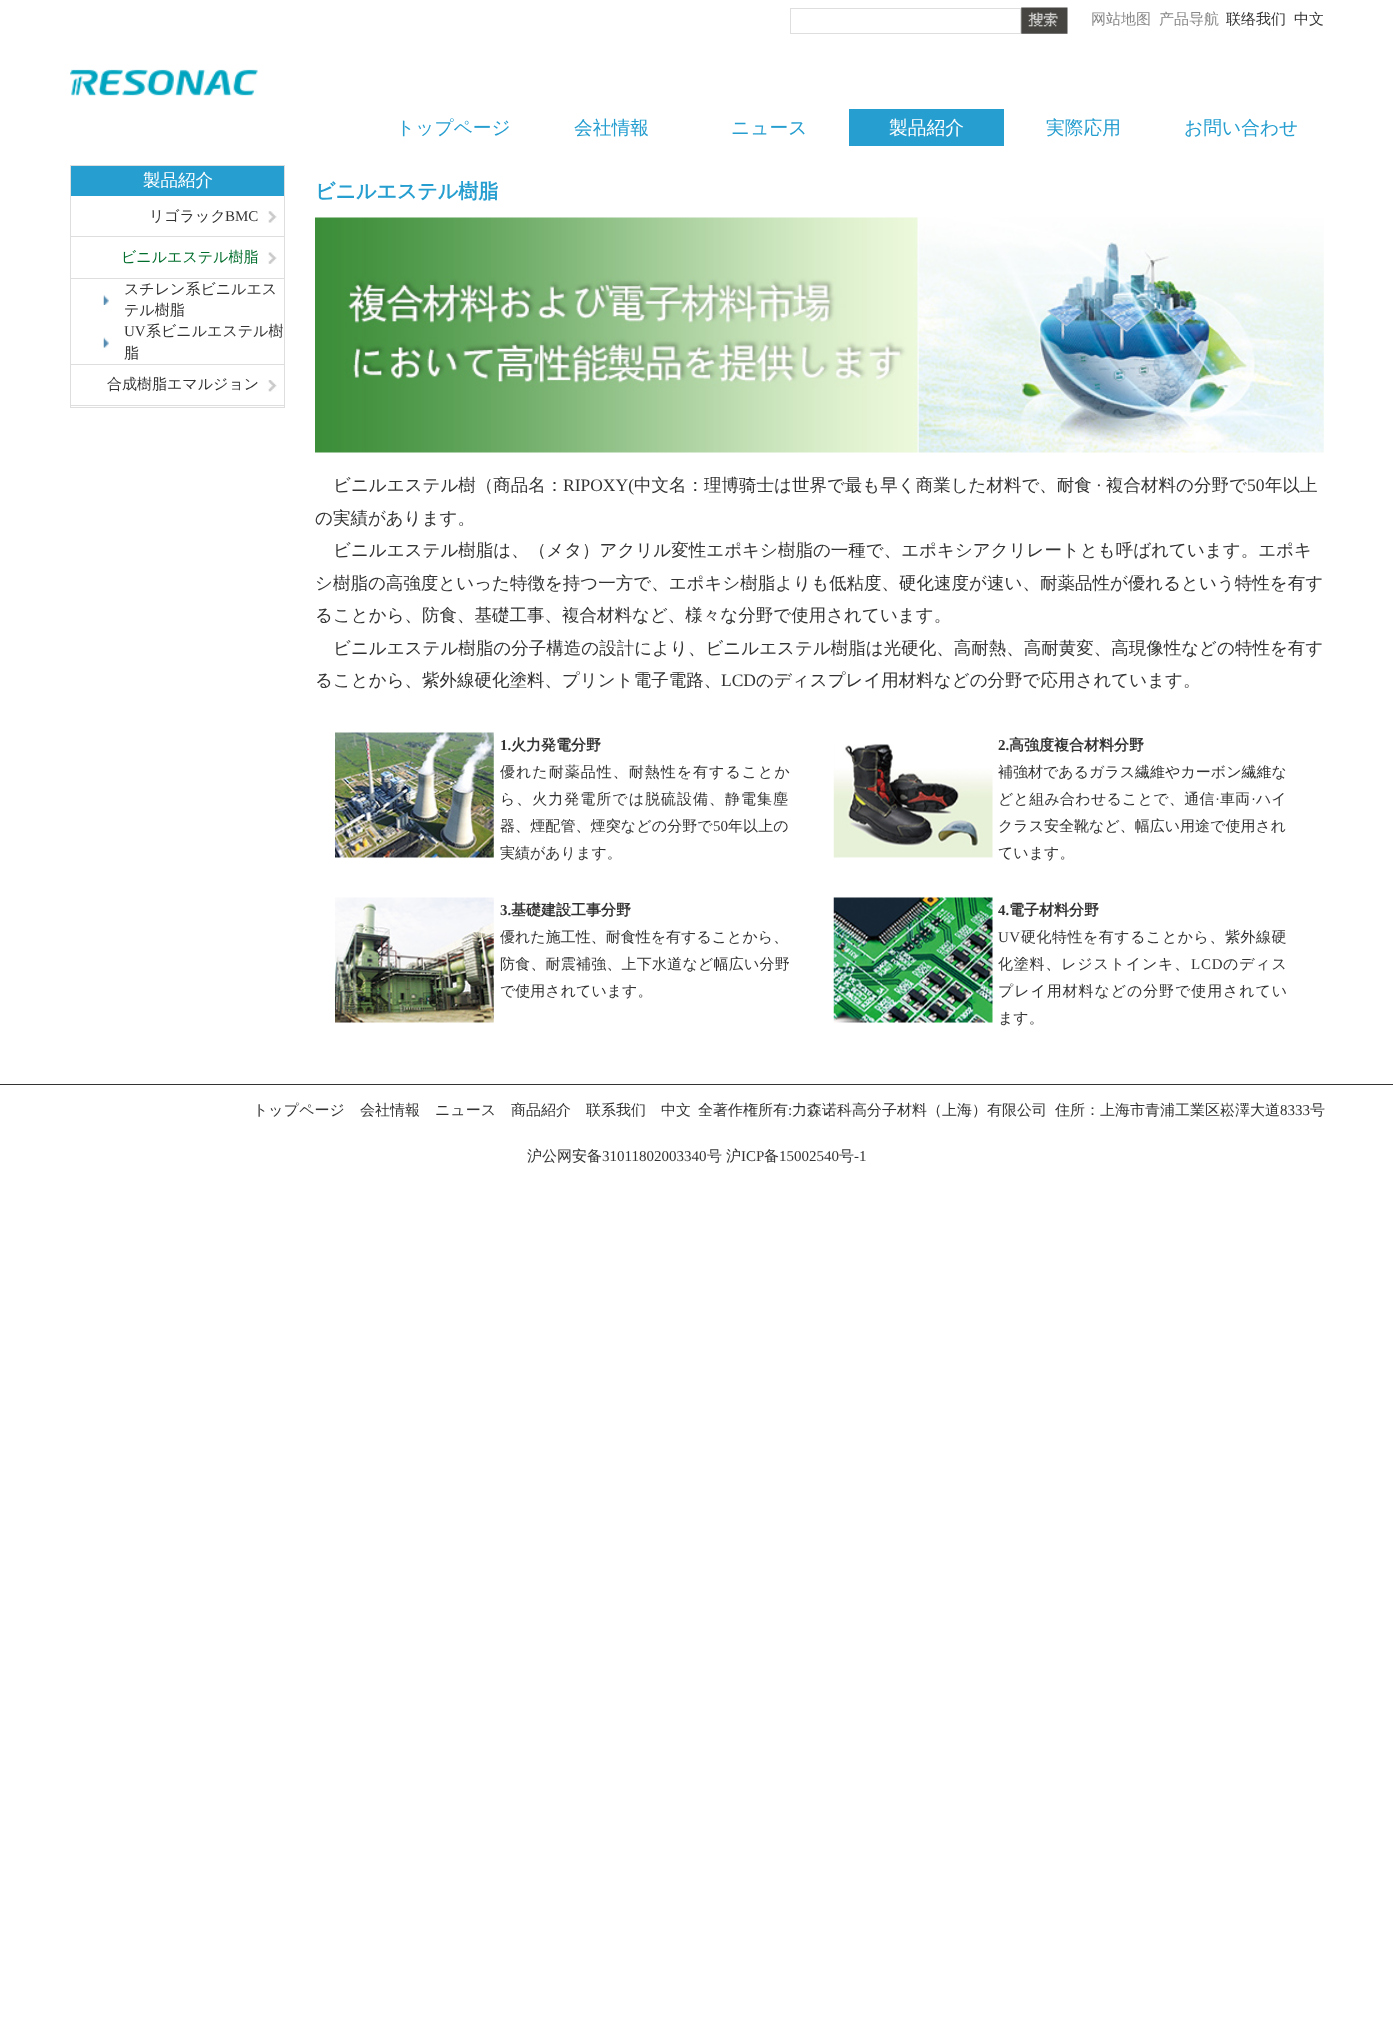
<svg xmlns="http://www.w3.org/2000/svg" width="1393" height="2031" viewBox="0 0 1393 2031">
  <rect width="100%" height="100%" fill="rgb(255,255,255)"/>
  <rect x="790.5" y="8.5" width="230" height="25" fill="none" stroke="rgb(222,222,222)"/>
  <image x="1021" y="7" width="47" height="27" href="pic1.png"/>
  <g font-family="WenQuanYi Zen Hei" font-size="15" font-weight="500" fill="rgb(136,136,136)">
    <text x="1091" y="24">网站地图</text>
    <text x="1159" y="24">产品导航</text>
  </g>
  <g font-family="WenQuanYi Zen Hei" font-size="15" font-weight="500" fill="rgb(51,51,51)">
    <text x="1226" y="24">联络我们</text>
    <text x="1294" y="24">中文</text>
  </g>
  <image x="70" y="69" width="188" height="27" href="pic2.png"/>
  <g font-family="WenQuanYi Zen Hei" font-size="18.75" font-weight="500" fill="rgb(38,158,208)">
    <text x="396" y="134">トップページ</text>
    <text x="574" y="134">会社情報</text>
    <text x="731" y="134">ニュース</text>
  </g>
  <rect x="849" y="109" width="155" height="37" fill="rgb(38,158,208)"/>
  <text x="889" y="134" font-family="WenQuanYi Zen Hei" font-size="18.75" font-weight="500" fill="rgb(255,255,255)">製品紹介</text>
  <g font-family="WenQuanYi Zen Hei" font-size="18.75" font-weight="500" fill="rgb(38,158,208)">
    <text x="1046" y="134">実際応用</text>
    <text x="1184" y="134">お問い合わせ</text>
  </g>
  <rect x="70.5" y="165.5" width="214" height="242" fill="none" stroke="rgb(222,222,222)"/>
  <rect x="71" y="166" width="213" height="30" fill="rgb(38,158,208)"/>
  <text x="143" y="186" font-family="WenQuanYi Zen Hei" font-size="17.5" font-weight="500" fill="rgb(255,255,255)">製品紹介</text>
  <rect x="71" y="236" width="213" height="1" fill="rgb(222,222,222)"/>
  <text x="149" y="221" font-family="WenQuanYi Zen Hei" font-size="15" font-weight="500" fill="rgb(51,51,51)">リゴラック</text>
  <text x="225" y="221" font-family="Liberation Serif" font-size="15" fill="rgb(51,51,51)">BMC</text>
  <image x="268" y="211" width="9" height="12" href="pic3.png"/>
  <rect x="71" y="278" width="213" height="1" fill="rgb(222,222,222)"/>
  <text x="121" y="262" font-family="WenQuanYi Zen Hei" font-size="15" font-weight="500" fill="rgb(0,109,44)">ビニルエステル樹脂</text>
  <image x="268" y="252" width="9" height="12" href="pic4.png"/>
  <rect x="71" y="364" width="213" height="1" fill="rgb(222,222,222)"/>
  <image x="103" y="295" width="6" height="10" href="pic5.png"/>
  <g font-family="WenQuanYi Zen Hei" font-size="15" font-weight="500" fill="rgb(51,51,51)">
    <text>
      <tspan x="124" y="294">スチレン系ビニルエス</tspan>
      <tspan x="124" y="315">テル樹脂</tspan>
    </text>
  </g>
  <image x="103" y="337" width="6" height="11" href="pic6.png"/>
  <text x="124" y="336" font-family="Liberation Serif" font-size="15" fill="rgb(51,51,51)">UV</text>
  <g font-family="WenQuanYi Zen Hei" font-size="15" font-weight="500" fill="rgb(51,51,51)">
    <text x="146" y="336">系ビニルエステル樹</text>
    <text x="124" y="358">脂</text>
  </g>
  <rect x="71" y="405" width="213" height="1" fill="rgb(222,222,222)"/>
  <text x="107" y="389" font-family="WenQuanYi Zen Hei" font-size="15" font-weight="500" fill="rgb(51,51,51)">合成樹脂エマルジョン</text>
  <image x="268" y="380" width="9" height="12" href="pic7.png"/>
  <text x="315" y="198" font-family="WenQuanYi Zen Hei" font-size="20" font-weight="bold" fill="rgb(38,158,208)">ビニルエステル樹脂</text>
  <image x="315" y="217" width="1009" height="236" href="pic8.png"/>
  <text x="333" y="491" font-family="WenQuanYi Zen Hei" font-size="17.5" font-weight="500" fill="rgb(51,51,51)">ビニルエステル樹（商品名：</text>
  <text x="563" y="491" font-family="Liberation Serif" font-size="17.5" fill="rgb(51,51,51)">RIPOXY(</text>
  <text x="634" y="491" font-family="WenQuanYi Zen Hei" font-size="17.5" font-weight="500" fill="rgb(51,51,51)">中文名：理博骑士は世界で最も早く商業した材料で、耐食</text>
  <text x="1096" y="491" font-family="Liberation Serif" font-size="17.5" fill="rgb(51,51,51)">·</text>
  <text x="1106" y="491" font-family="WenQuanYi Zen Hei" font-size="17.5" font-weight="500" fill="rgb(51,51,51)">複合材料の分野で</text>
  <text x="1247" y="491" font-family="Liberation Serif" font-size="17.5" fill="rgb(51,51,51)">50</text>
  <g font-family="WenQuanYi Zen Hei" font-size="17.5" font-weight="500" fill="rgb(51,51,51)">
    <text x="1265" y="491">年以上</text>
    <text x="315" y="524">の実績があります。</text>
    <text x="333" y="556">ビニルエステル樹脂は、（メタ）アクリル変性エポキシ樹脂の一種で、エポキシアクリレートとも呼ばれています。エポキ</text>
    <text>
      <tspan x="315" y="589">シ樹脂の高強度といった特徴を持つ一方で、エポキシ樹脂よりも低粘度、硬化速度が速い、耐薬品性が優れるという特性を有す</tspan>
      <tspan x="315" y="621">ることから、防食、基礎工事、複合材料など、様々な分野で使用されています。</tspan>
    </text>
    <text x="333" y="654">ビニルエステル樹脂の分子構造の設計により、ビニルエステル樹脂は光硬化、高耐熱、高耐黄変、高現像性などの特性を有す</text>
    <text x="315" y="686">ることから、紫外線硬化塗料、プリント電子電路、</text>
  </g>
  <text x="721" y="686" font-family="Liberation Serif" font-size="17.5" fill="rgb(51,51,51)">LCD</text>
  <text x="756" y="686" font-family="WenQuanYi Zen Hei" font-size="17.5" font-weight="500" fill="rgb(51,51,51)">のディスプレイ用材料などの分野で応用されています。</text>
  <image x="335" y="732" width="159" height="126" href="pic9.png"/>
  <text x="500" y="750" font-family="Liberation Serif" font-size="15" font-weight="bold" fill="rgb(51,51,51)">1.</text>
  <text x="511" y="750" font-family="WenQuanYi Zen Hei" font-size="15" font-weight="bold" fill="rgb(51,51,51)">火力発電分野</text>
  <g font-family="WenQuanYi Zen Hei" font-size="15" font-weight="500" letter-spacing="1" fill="rgb(51,51,51)">
    <text>
      <tspan x="500" y="777">優れた耐薬品性、耐熱性を有することか</tspan>
      <tspan x="500" y="804">ら、火力発電所では脱硫設備、静電集塵</tspan>
    </text>
  </g>
  <text x="500" y="831" font-family="WenQuanYi Zen Hei" font-size="15" font-weight="500" letter-spacing="0.1" fill="rgb(51,51,51)">器、煙配管、煙突などの分野で</text>
  <text x="713" y="831" font-family="Liberation Serif" font-size="15" letter-spacing="0.1" fill="rgb(51,51,51)">50</text>
  <text x="728" y="831" font-family="WenQuanYi Zen Hei" font-size="15" font-weight="500" letter-spacing="0.1" fill="rgb(51,51,51)">年以上の</text>
  <text x="500" y="858" font-family="WenQuanYi Zen Hei" font-size="15" font-weight="500" fill="rgb(51,51,51)">実績があります。</text>
  <image x="833" y="744" width="160" height="114" href="pic10.png"/>
  <text x="998" y="750" font-family="Liberation Serif" font-size="15" font-weight="bold" fill="rgb(51,51,51)">2.</text>
  <text x="1009" y="750" font-family="WenQuanYi Zen Hei" font-size="15" font-weight="bold" fill="rgb(51,51,51)">高強度複合材料分野</text>
  <text x="998" y="777" font-family="WenQuanYi Zen Hei" font-size="15" font-weight="500" fill="rgb(51,51,51)">補強材であるガラス繊維やカーボン繊維な</text>
  <text x="998" y="804" font-family="WenQuanYi Zen Hei" font-size="15" font-weight="500" letter-spacing="0.25" fill="rgb(51,51,51)">どと組み合わせることで、通信</text>
  <text x="1215" y="804" font-family="Liberation Serif" font-size="15" fill="rgb(51,51,51)">·</text>
  <text x="1220" y="804" font-family="WenQuanYi Zen Hei" font-size="15" font-weight="500" fill="rgb(51,51,51)">車両</text>
  <text x="1251" y="804" font-family="Liberation Serif" font-size="15" fill="rgb(51,51,51)">·</text>
  <g font-family="WenQuanYi Zen Hei" font-size="15" font-weight="500" fill="rgb(51,51,51)">
    <text x="1256" y="804">ハイ</text>
    <text>
      <tspan x="998" y="831">クラス安全靴など、幅広い用途で使用され</tspan>
      <tspan x="998" y="858">ています。</tspan>
    </text>
  </g>
  <image x="335" y="897" width="159" height="126" href="pic11.png"/>
  <text x="500" y="915" font-family="Liberation Serif" font-size="15" font-weight="bold" fill="rgb(51,51,51)">3.</text>
  <text x="511" y="915" font-family="WenQuanYi Zen Hei" font-size="15" font-weight="bold" fill="rgb(51,51,51)">基礎建設工事分野</text>
  <text x="500" y="942" font-family="WenQuanYi Zen Hei" font-size="15" font-weight="500" fill="rgb(51,51,51)">優れた施工性、耐食性を有することから、</text>
  <text x="500" y="969" font-family="WenQuanYi Zen Hei" font-size="15" font-weight="500" letter-spacing="0.2" fill="rgb(51,51,51)">防食、耐震補強、上下水道など幅広い分野</text>
  <text x="500" y="996" font-family="WenQuanYi Zen Hei" font-size="15" font-weight="500" fill="rgb(51,51,51)">で使用されています。</text>
  <image x="833" y="897" width="160" height="126" href="pic12.png"/>
  <text x="998" y="915" font-family="Liberation Serif" font-size="15" font-weight="bold" fill="rgb(51,51,51)">4.</text>
  <text x="1009" y="915" font-family="WenQuanYi Zen Hei" font-size="15" font-weight="bold" fill="rgb(51,51,51)">電子材料分野</text>
  <text x="998" y="942" font-family="Liberation Serif" font-size="15" letter-spacing="0.5" fill="rgb(51,51,51)">UV</text>
  <text x="1021" y="942" font-family="WenQuanYi Zen Hei" font-size="15" font-weight="500" letter-spacing="0.5" fill="rgb(51,51,51)">硬化特性を有することから、紫外線硬</text>
  <text x="998" y="969" font-family="WenQuanYi Zen Hei" font-size="15" font-weight="500" letter-spacing="0.8" fill="rgb(51,51,51)">化塗料、レジストインキ、</text>
  <text x="1191" y="969" font-family="Liberation Serif" font-size="15" letter-spacing="0.8" fill="rgb(51,51,51)">LCD</text>
  <text x="1223" y="969" font-family="WenQuanYi Zen Hei" font-size="15" font-weight="500" letter-spacing="0.8" fill="rgb(51,51,51)">のディス</text>
  <text x="998" y="996" font-family="WenQuanYi Zen Hei" font-size="15" font-weight="500" letter-spacing="0.9" fill="rgb(51,51,51)">プレイ用材料などの分野で使用されてい</text>
  <text x="998" y="1023" font-family="WenQuanYi Zen Hei" font-size="15" font-weight="500" fill="rgb(51,51,51)">ます。</text>
  <rect x="0" y="1084" width="1393" height="1" fill="rgb(51,51,51)"/>
  <g font-family="WenQuanYi Zen Hei" font-size="15" font-weight="500" fill="rgb(51,51,51)">
    <text x="253" y="1115">トップページ</text>
    <text x="360" y="1115">会社情報</text>
    <text x="435" y="1115">ニュース</text>
    <text x="511" y="1115">商品紹介</text>
    <text x="586" y="1115">联系我们</text>
    <text x="661" y="1115">中文</text>
    <text x="698" y="1115">全著作権所有</text>
  </g>
  <text x="788" y="1115" font-family="Liberation Serif" font-size="15" fill="rgb(51,51,51)">:</text>
  <g font-family="WenQuanYi Zen Hei" font-size="15" font-weight="500" fill="rgb(51,51,51)">
    <text x="792" y="1115">力森诺科高分子材料（上海）有限公司</text>
    <text x="1055" y="1115">住所：上海市青浦工業区崧澤大道</text>
  </g>
  <text x="1280" y="1115" font-family="Liberation Serif" font-size="15" fill="rgb(51,51,51)">8333</text>
  <g font-family="WenQuanYi Zen Hei" font-size="15" font-weight="500" fill="rgb(51,51,51)">
    <text x="1310" y="1115">号</text>
    <text x="527" y="1161">沪公网安备</text>
  </g>
  <text x="602" y="1161" font-family="Liberation Serif" font-size="15" fill="rgb(51,51,51)">31011802003340</text>
  <g font-family="WenQuanYi Zen Hei" font-size="15" font-weight="500" fill="rgb(51,51,51)">
    <text x="707" y="1161">号</text>
    <text x="726" y="1161">沪</text>
  </g>
  <text x="741" y="1161" font-family="Liberation Serif" font-size="15" fill="rgb(51,51,51)">ICP</text>
  <text x="764" y="1161" font-family="WenQuanYi Zen Hei" font-size="15" font-weight="500" fill="rgb(51,51,51)">备</text>
  <text x="779" y="1161" font-family="Liberation Serif" font-size="15" fill="rgb(51,51,51)">15002540</text>
  <text x="839" y="1161" font-family="WenQuanYi Zen Hei" font-size="15" font-weight="500" fill="rgb(51,51,51)">号</text>
  <text x="854" y="1161" font-family="Liberation Serif" font-size="15" fill="rgb(51,51,51)">-1</text>
</svg>
